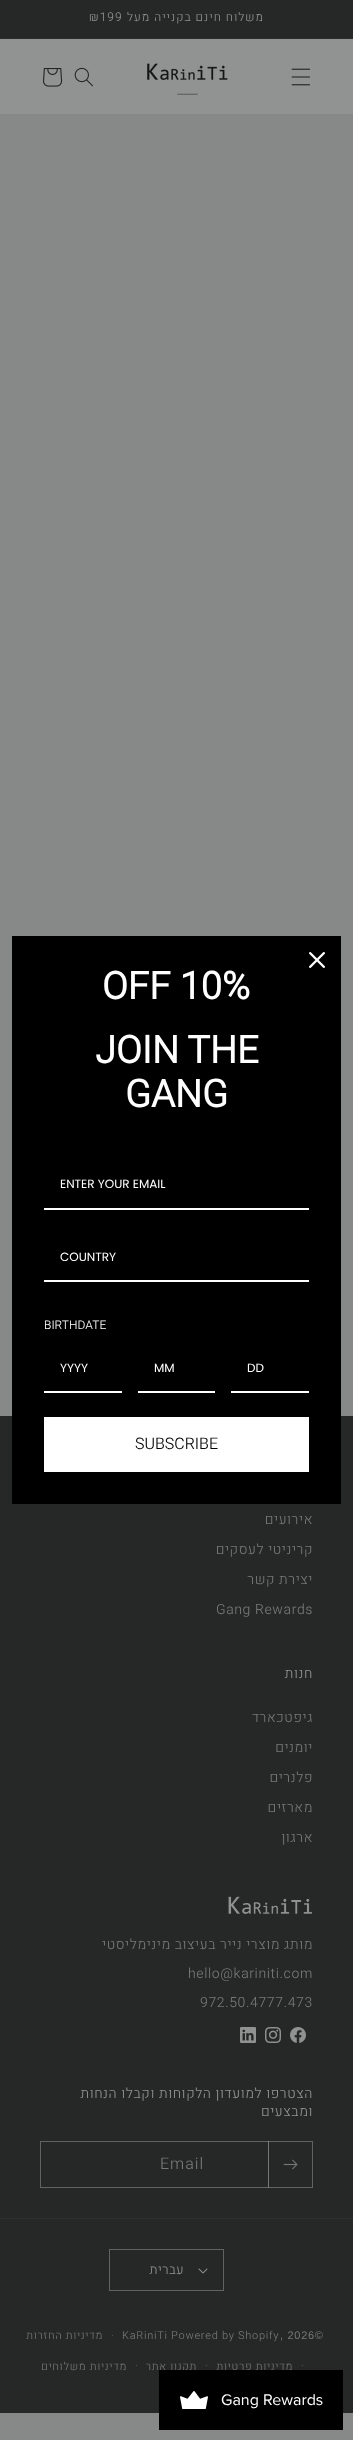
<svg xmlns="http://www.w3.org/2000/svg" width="353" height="2440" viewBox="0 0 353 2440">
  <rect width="100%" height="100%" fill="rgb(135,136,136)"/>
  <rect x="0" y="0" width="353" height="38" fill="rgb(38,39,39)"/>
  <rect x="0" y="38" width="353" height="1" fill="rgb(46,47,47)"/>
  <text x="264" y="21" font-family="Heebo" font-size="12" font-weight="300" letter-spacing="1" direction="rtl" fill="rgb(145,146,146)">משלוח חינם בקנייה מעל</text>
  <text x="89" y="21" font-family="Heebo" font-size="12" font-weight="300" letter-spacing="1" fill="rgb(145,146,146)">₪199</text>
  <rect x="0" y="39" width="353" height="75" fill="rgb(145,146,146)"/>
  <image x="291" y="68" width="20" height="18" href="pic1.png"/>
  <image x="147" y="63" width="81" height="32" href="pic2.png"/>
  <image x="74" y="67" width="19" height="20" href="pic3.png"/>
  <image x="43" y="68" width="20" height="19" href="pic4.png"/>
  <rect x="0" y="1416" width="353" height="997" fill="rgb(38,39,39)"/>
  <rect x="12" y="936" width="329" height="568" fill="rgb(0,0,0)"/>
  <image x="309" y="952" width="16" height="16" href="pic5.png"/>
  <g font-family="Heebo" font-size="38" font-weight="bold" fill="rgb(255,255,255)">
    <text x="102" y="999">OFF 10%</text>
    <text x="95" y="1063">JOIN THE</text>
    <text x="125" y="1107">GANG</text>
  </g>
  <rect x="44" y="1208" width="265" height="2" fill="rgb(255,255,255)"/>
  <text x="60" y="1188" font-family="Poppins" font-size="12" fill="rgb(255,255,255)">ENTER YOUR EMAIL</text>
  <rect x="44" y="1280" width="265" height="2" fill="rgb(255,255,255)"/>
  <text x="60" y="1261" font-family="Poppins" font-size="12" fill="rgb(255,255,255)">COUNTRY</text>
  <text x="44" y="1329" font-family="Heebo" font-size="12" font-weight="300" fill="rgb(255,255,255)">BIRTHDATE</text>
  <rect x="231" y="1391" width="78" height="2" fill="rgb(255,255,255)"/>
  <text x="247" y="1372" font-family="Poppins" font-size="12" fill="rgb(255,255,255)">DD</text>
  <rect x="138" y="1391" width="77" height="2" fill="rgb(255,255,255)"/>
  <text x="154" y="1372" font-family="Poppins" font-size="12" fill="rgb(255,255,255)">MM</text>
  <rect x="44" y="1391" width="78" height="2" fill="rgb(255,255,255)"/>
  <text x="60" y="1372" font-family="Poppins" font-size="12" fill="rgb(255,255,255)">YYYY</text>
  <rect x="44" y="1417" width="265" height="55" fill="rgb(255,255,255)"/>
  <text x="135" y="1449" font-family="Heebo" font-size="16" font-weight="300" fill="rgb(0,0,0)">SUBSCRIBE</text>
  <g font-family="Heebo" font-size="14" font-weight="300" letter-spacing="0.6" direction="rtl" fill="rgb(118,119,119)">
    <text x="313" y="1524">אירועים</text>
    <text x="313" y="1554">קריניטי לעסקים</text>
    <text x="313" y="1584">יצירת קשר</text>
  </g>
  <text x="216" y="1614" font-family="Heebo" font-size="14" font-weight="300" letter-spacing="0.6" fill="rgb(118,119,119)">Gang Rewards</text>
  <text x="313" y="1678" font-family="Heebo" font-size="14" font-weight="300" letter-spacing="0.6" direction="rtl" fill="rgb(145,146,146)">חנות</text>
  <g font-family="Heebo" font-size="14" font-weight="300" letter-spacing="0.6" direction="rtl" fill="rgb(118,119,119)">
    <text x="313" y="1722">גיפטכארד</text>
    <text x="313" y="1752">יומנים</text>
    <text x="313" y="1782">פלנרים</text>
    <text x="313" y="1812">מארזים</text>
    <text x="313" y="1842">ארגון</text>
  </g>
  <image x="228" y="1896" width="84" height="18" href="pic6.png"/>
  <text x="313" y="1949" font-family="Heebo" font-size="14" font-weight="300" letter-spacing="0.6" direction="rtl" fill="rgb(118,119,119)">מותג מוצרי נייר בעיצוב מינימליסטי</text>
  <g font-family="Heebo" font-size="14" font-weight="300" letter-spacing="0.6" fill="rgb(118,119,119)">
    <text x="188" y="1978">hello@kariniti.com</text>
    <text x="200" y="2007">972.50.4777.473</text>
  </g>
  <image x="290" y="2027" width="16" height="16" href="pic7.png"/>
  <image x="265" y="2027" width="16" height="16" href="pic8.png"/>
  <image x="240" y="2027" width="16" height="16" href="pic9.png"/>
  <g font-family="Heebo" font-size="14" font-weight="300" letter-spacing="0.6" direction="rtl" fill="rgb(145,146,146)">
    <text>
      <tspan x="313" y="2098">הצטרפו למועדון הלקוחות וקבלו הנחות</tspan>
      <tspan x="313" y="2116">ומבצעים</tspan>
    </text>
  </g>
  <rect x="40.5" y="2141.5" width="272" height="46" fill="none" stroke="rgb(97,98,98)"/>
  <rect x="268" y="2141" width="1" height="47" fill="rgba(145,146,146,0.75)"/>
  <image x="283" y="2159" width="15" height="11" href="pic10.png"/>
  <text x="160" y="2169" font-family="Heebo" font-size="16" font-weight="300" letter-spacing="1" fill="rgb(118,119,119)">Email</text>
  <rect x="0" y="2218" width="353" height="1" fill="rgb(46,47,47)"/>
  <image x="198" y="2268" width="10" height="6" href="pic11.png"/>
  <rect x="109.5" y="2249.5" width="114" height="41" fill="none" stroke="rgb(97,98,98)"/>
  <text x="184" y="2274" font-family="Heebo" font-size="13" font-weight="300" letter-spacing="0.5" direction="rtl" fill="rgb(145,146,146)">עברית</text>
  <text x="280" y="2339" font-family="Liberation Sans" font-size="11" letter-spacing="0.7" fill="rgb(118,119,119)">, 2026©</text>
  <text x="122" y="2339" font-family="Heebo" font-size="11" font-weight="300" letter-spacing="0.7" fill="rgb(118,119,119)">KaRiniTi Powered by Shopify</text>
  <text x="111" y="2339" font-family="Heebo" font-size="10" font-weight="300" letter-spacing="0.7" fill="rgb(118,119,119)">·</text>
  <text x="103" y="2339" font-family="Heebo" font-size="11" font-weight="300" letter-spacing="0.7" direction="rtl" fill="rgb(118,119,119)">מדיניות החזרות</text>
  <text x="301" y="2369" font-family="Heebo" font-size="10" font-weight="300" letter-spacing="0.7" fill="rgb(118,119,119)">·</text>
  <text x="293" y="2370" font-family="Heebo" font-size="11" font-weight="300" letter-spacing="0.7" direction="rtl" fill="rgb(118,119,119)">מדיניות פרטיות</text>
  <text x="205" y="2369" font-family="Heebo" font-size="10" font-weight="300" letter-spacing="0.7" fill="rgb(118,119,119)">·</text>
  <text x="197" y="2370" font-family="Heebo" font-size="11" font-weight="300" letter-spacing="0.7" direction="rtl" fill="rgb(118,119,119)">תקנון אתר</text>
  <text x="135" y="2369" font-family="Heebo" font-size="10" font-weight="300" letter-spacing="0.7" fill="rgb(118,119,119)">·</text>
  <text x="127" y="2370" font-family="Heebo" font-size="11" font-weight="300" letter-spacing="0.7" direction="rtl" fill="rgb(118,119,119)">מדיניות משלוחים</text>
  <image x="159" y="2370" width="184" height="60" href="pic12.png"/>
</svg>
